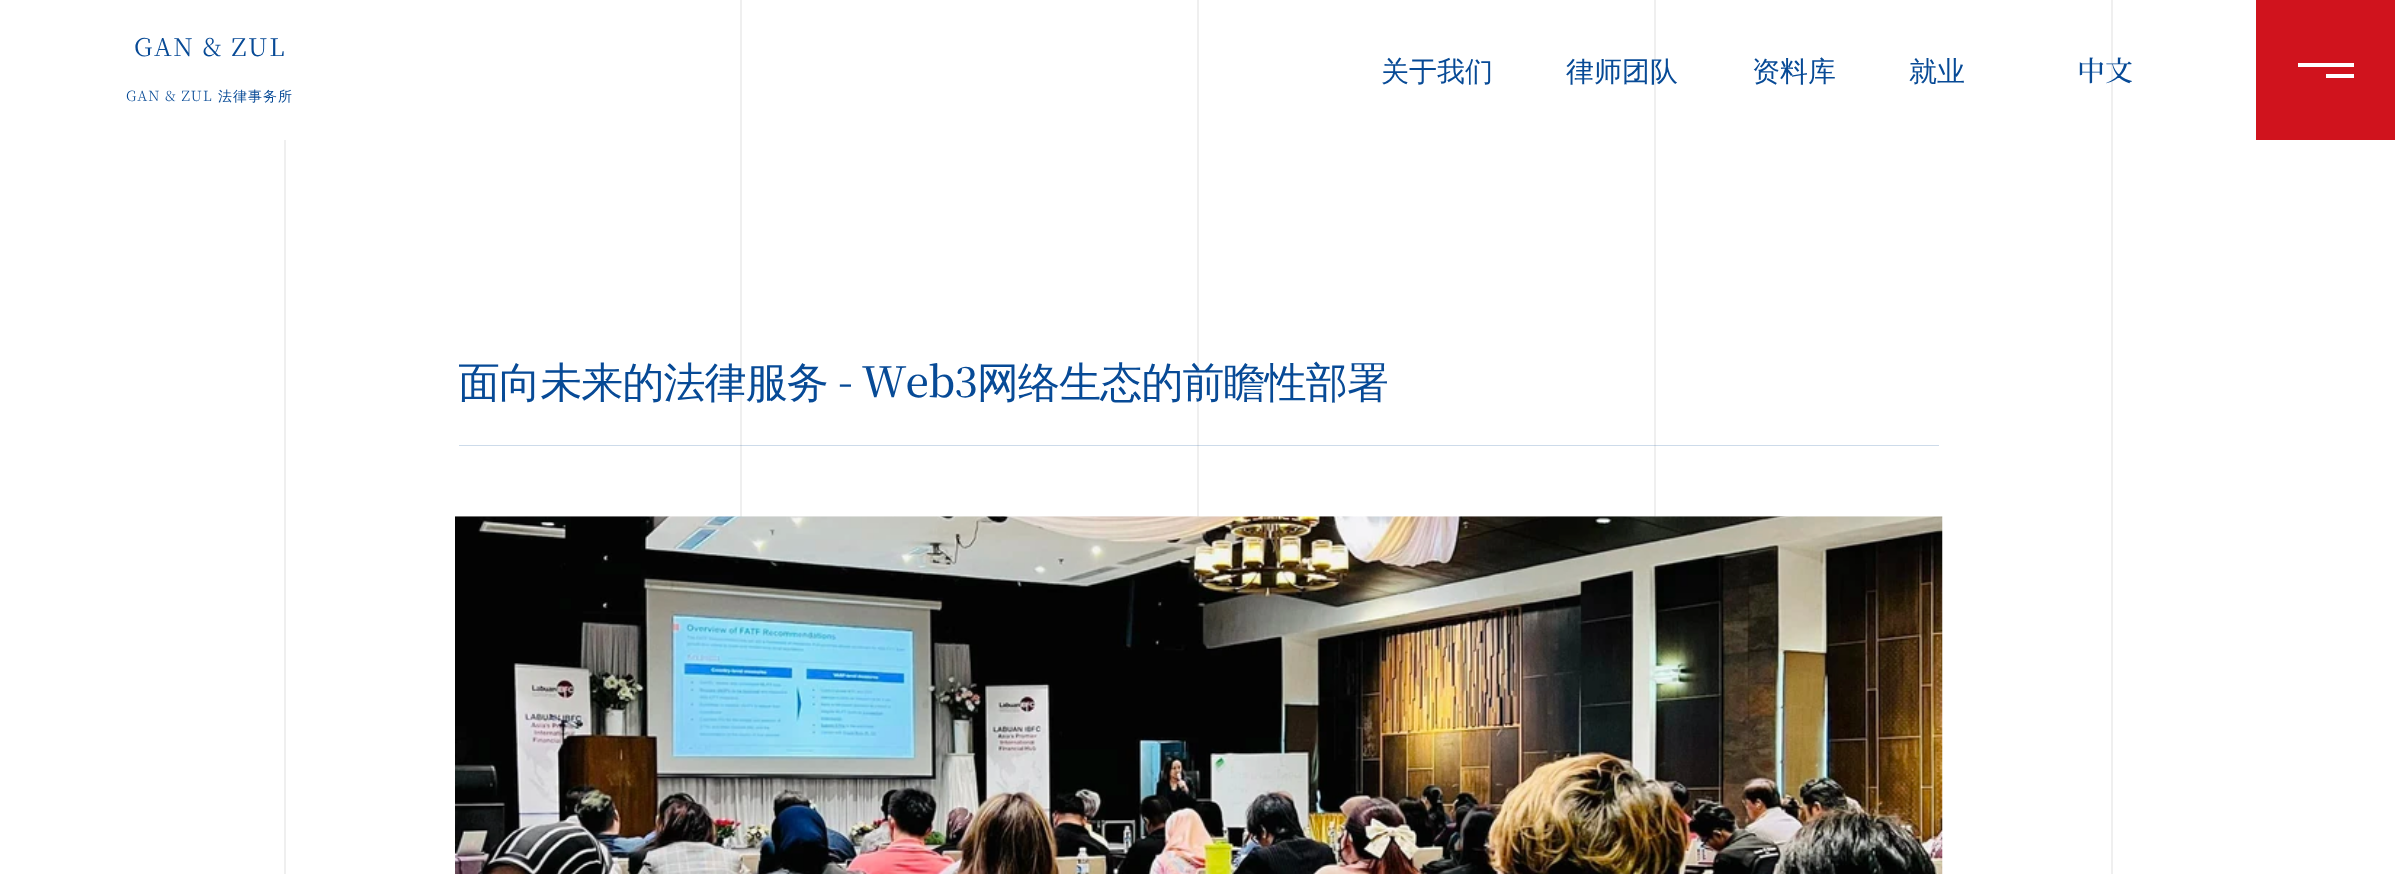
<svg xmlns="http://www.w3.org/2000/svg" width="2395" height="874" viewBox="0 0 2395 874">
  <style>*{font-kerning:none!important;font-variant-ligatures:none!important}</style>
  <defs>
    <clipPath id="clip1"><rect x="459" y="350" width="1480" height="96"/></clipPath>
  </defs>
  <rect width="100%" height="100%" fill="rgb(255,255,255)"/>
  <rect x="459" y="445" width="1480" height="1" fill="rgb(205,219,234)"/>
  <text x="134" y="56" font-family="Noto Serif JP" font-size="24.5" letter-spacing="1.75" fill="rgb(7,74,150)">GAN &amp; ZUL</text>
  <text x="126" y="101" font-family="Noto Serif JP" font-size="14" font-weight="300" letter-spacing="1" fill="rgb(7,74,150)">GAN &amp; ZUL</text>
  <text x="218" y="101" font-family="WenQuanYi Zen Hei" font-size="14" font-weight="500" letter-spacing="1" fill="rgb(7,74,150)">法律事务所</text>
  <text x="1381" y="81" font-family="WenQuanYi Zen Hei" font-size="28" font-weight="500" fill="rgb(7,74,150)">关于我们</text>
  <rect x="1654" y="0" width="2" height="517" fill="rgb(239,239,239)"/>
  <g font-family="WenQuanYi Zen Hei" font-size="28" font-weight="500" fill="rgb(7,74,150)">
    <text x="1566" y="81">律师团队</text>
    <text x="1752" y="81">资料库</text>
    <text x="1909" y="81">就业</text>
  </g>
  <rect x="2111" y="0" width="2" height="874" fill="rgb(239,239,239)"/>
  <text x="2077" y="81" font-family="Noto Serif JP" font-size="28" font-weight="500" fill="rgb(7,74,150)">中文</text>
  <rect x="2256" y="0" width="139" height="140" fill="rgb(208,19,29)"/>
  <rect x="2298" y="63" width="56" height="4" fill="rgb(255,255,255)"/>
  <rect x="2326" y="74" width="28" height="4" fill="rgb(255,255,255)"/>
  <rect x="284" y="140" width="2" height="734" fill="rgb(239,239,239)"/>
  <rect x="740" y="0" width="2" height="517" fill="rgb(239,239,239)"/>
  <rect x="740" y="445" width="2" height="1" fill="rgb(193,206,221)"/>
  <rect x="1197" y="0" width="2" height="517" fill="rgb(239,239,239)"/>
  <rect x="1197" y="445" width="2" height="1" fill="rgb(193,206,221)"/>
  <rect x="1654" y="445" width="2" height="1" fill="rgb(193,206,221)"/>
  <g clip-path="url(#clip1)">
    <text x="458" y="397" font-family="WenQuanYi Zen Hei" font-size="42" font-weight="500" letter-spacing="-0.9" fill="rgb(7,74,150)">面向未来的法律服务</text>
  </g>
  <text x="838" y="397" font-family="Noto Serif JP" font-size="42" font-weight="500" letter-spacing="-0.9" fill="rgb(7,74,150)">- Web3</text>
  <text x="977" y="397" font-family="WenQuanYi Zen Hei" font-size="42" font-weight="500" letter-spacing="-0.9" fill="rgb(7,74,150)">网络生态的前瞻性部署</text>
  <image x="455" y="516" width="1488" height="358" href="pic1.png"/>
</svg>
